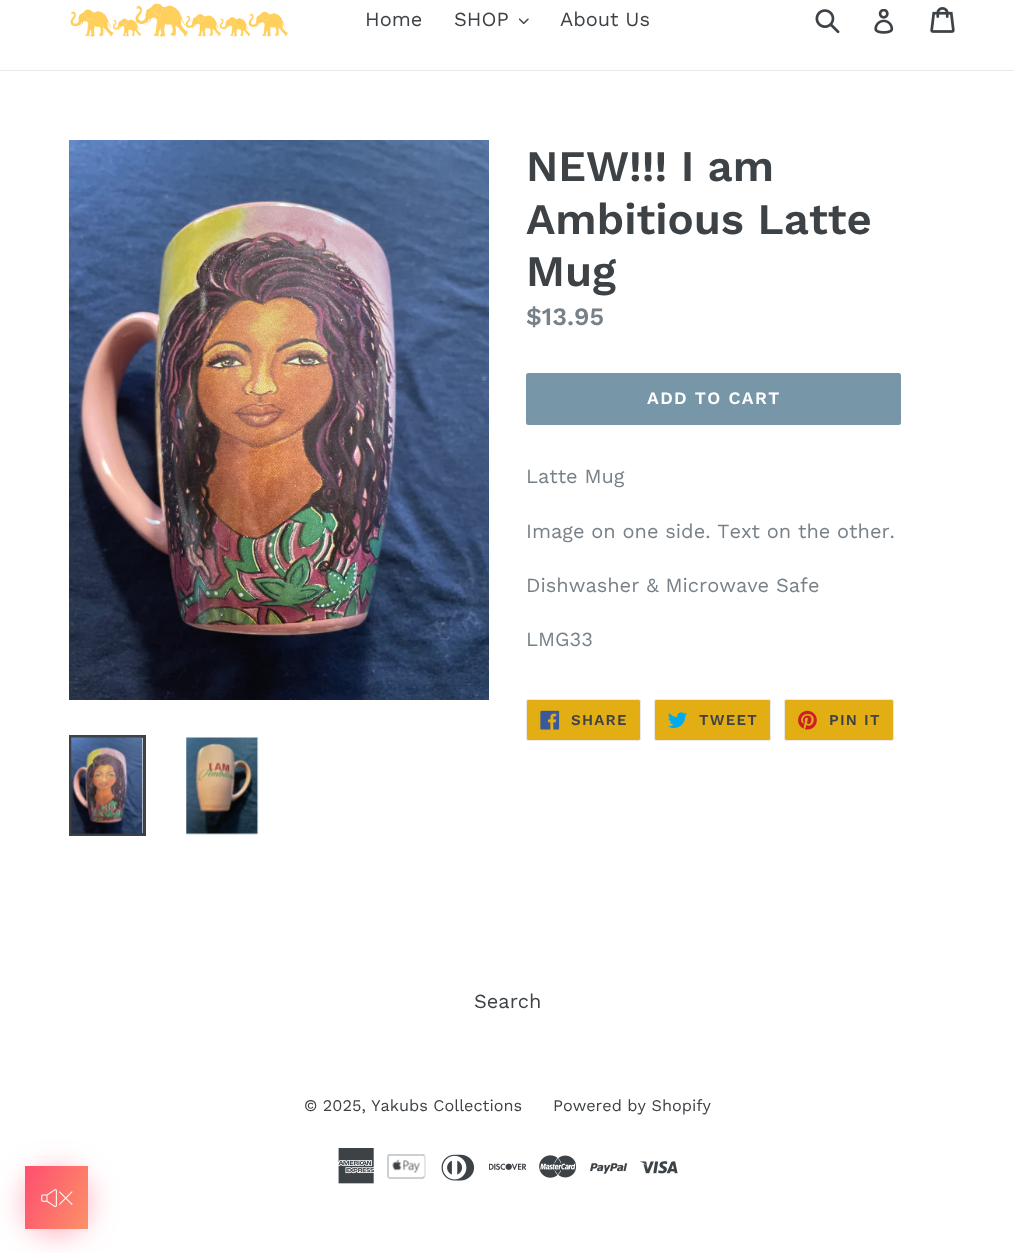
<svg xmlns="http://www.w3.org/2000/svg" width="1014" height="1253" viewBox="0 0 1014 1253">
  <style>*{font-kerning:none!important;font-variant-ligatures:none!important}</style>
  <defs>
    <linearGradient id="g1" gradientUnits="userSpaceOnUse" x1="19" y1="1180" x2="94" y2="1215"><stop offset="0" stop-color="rgb(255,78,111)"/><stop offset="1" stop-color="rgb(251,145,104)"/></linearGradient>
  </defs>
  <rect width="100%" height="100%" fill="rgb(255,255,255)"/>
  <rect x="0" y="70" width="1014" height="1" fill="rgb(232,233,235)"/>
  <image x="70" y="3" width="218" height="34" href="pic1.png"/>
  <g font-family="Work Sans" font-size="20" fill="rgb(61,66,70)">
    <text x="365" y="26">Home</text>
    <text x="454" y="26">SHOP</text>
  </g>
  <image x="519" y="18" width="10" height="7" href="pic2.png"/>
  <text x="560" y="26" font-family="Work Sans" font-size="20" fill="rgb(61,66,70)">About Us</text>
  <image x="815" y="9" width="25" height="25" href="pic3.png"/>
  <image x="874" y="9" width="20" height="25" href="pic4.png"/>
  <image x="930" y="7" width="25" height="26" href="pic5.png"/>
  <image x="69" y="140" width="420" height="560" href="pic6.png"/>
  <rect x="70.5" y="736.5" width="74" height="98" fill="none" stroke="rgb(61,66,70)" stroke-width="3"/>
  <image x="71" y="737" width="73" height="98" href="pic7.png"/>
  <image x="186" y="737" width="73" height="98" href="pic8.png"/>
  <g font-family="Work Sans" font-size="43.75" font-weight="600" fill="rgb(61,66,70)">
    <text>
      <tspan x="526" y="181">NEW!!! I am</tspan>
      <tspan x="526" y="234">Ambitious Latte</tspan>
      <tspan x="526" y="286">Mug</tspan>
    </text>
  </g>
  <text x="526" y="325" font-family="Work Sans" font-size="25" font-weight="600" fill="rgb(120,129,136)">$13.95</text>
  <rect x="526" y="373" width="375" height="52" rx="2.5" fill="rgb(119,150,168)"/>
  <text x="647" y="404" font-family="Work Sans" font-size="17.5" font-weight="600" letter-spacing="1.4" fill="rgb(255,255,255)">ADD TO CART</text>
  <g font-family="Work Sans" font-size="20" fill="rgb(120,129,136)">
    <text x="526" y="483">Latte Mug</text>
    <text x="526" y="538">Image on one side. Text on the other.</text>
    <text x="526" y="592">Dishwasher &amp; Microwave Safe</text>
    <text x="526" y="646">LMG33</text>
  </g>
  <rect x="526.5" y="699.5" width="114" height="41" rx="2" fill="rgb(227,174,20)" stroke="rgb(232,233,235)"/>
  <image x="540" y="710" width="20" height="20" href="pic9.png"/>
  <text x="571" y="725" font-family="Work Sans" font-size="15" font-weight="600" letter-spacing="1.25" fill="rgb(61,66,70)">SHARE</text>
  <rect x="654.5" y="699.5" width="116" height="41" rx="2" fill="rgb(227,174,20)" stroke="rgb(232,233,235)"/>
  <image x="668" y="712" width="19" height="16" href="pic10.png"/>
  <text x="699" y="725" font-family="Work Sans" font-size="15" font-weight="600" letter-spacing="1.25" fill="rgb(61,66,70)">TWEET</text>
  <rect x="784.5" y="699.5" width="109" height="41" rx="2" fill="rgb(227,174,20)" stroke="rgb(232,233,235)"/>
  <image x="798" y="710" width="19" height="20" href="pic11.png"/>
  <text x="829" y="725" font-family="Work Sans" font-size="15" font-weight="600" letter-spacing="1.25" fill="rgb(61,66,70)">PIN IT</text>
  <text x="474" y="1008" font-family="Work Sans" font-size="20" fill="rgb(61,66,70)">Search</text>
  <g font-family="Work Sans" font-size="16.25" fill="rgb(61,66,70)">
    <text x="304" y="1111">© 2025, Yakubs Collections</text>
    <text x="553" y="1111">Powered by Shopify</text>
  </g>
  <image x="338" y="1148" width="36" height="36" href="pic12.png"/>
  <image x="387" y="1154" width="39" height="25" href="pic13.png"/>
  <image x="441" y="1154" width="34" height="27" href="pic14.png"/>
  <image x="489" y="1163" width="37" height="7" href="pic15.png"/>
  <image x="539" y="1155" width="37" height="23" href="pic16.png"/>
  <image x="590" y="1163" width="38" height="11" href="pic17.png"/>
  <image x="640" y="1161" width="38" height="13" href="pic18.png"/>
  <rect x="25" y="1171" width="63" height="63" rx="31.5" fill="rgba(255,78,111,0.5)" filter="blur(15px)"/>
  <rect x="25" y="1166" width="63" height="63" fill="url(#g1)"/>
  <image x="41" y="1189" width="32" height="19" href="pic19.png"/>
</svg>
